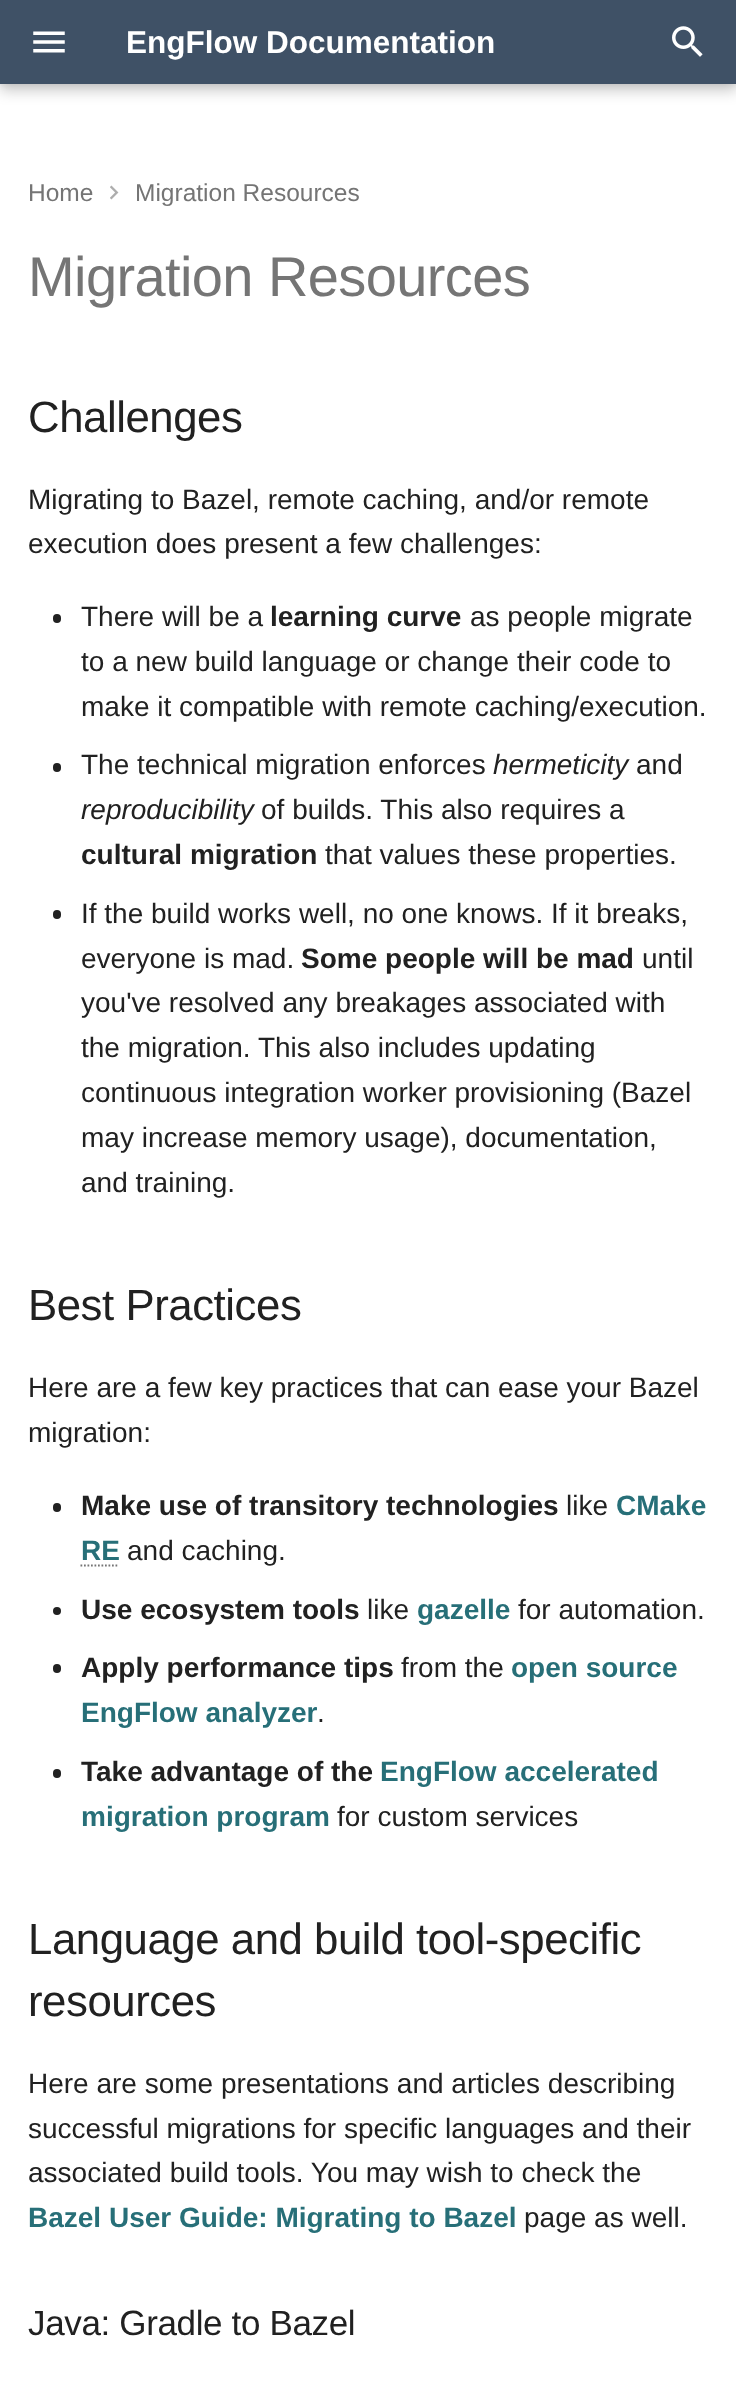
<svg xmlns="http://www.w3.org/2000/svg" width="736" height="2384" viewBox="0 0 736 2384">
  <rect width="100%" height="100%" fill="rgb(255,255,255)"/>
  <rect x="0" y="7" width="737" height="84" fill="rgba(0,0,0,0.2)" filter="blur(7px)"/>
  <rect x="0" y="0" width="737" height="84" fill="rgba(0,0,0,0.1)" filter="blur(3.5px)"/>
  <rect x="0" y="0" width="736" height="84" fill="rgb(63,81,102)"/>
  <image x="33" y="31" width="32" height="22" href="pic1.png"/>
  <text x="126" y="53" font-family="Liberation Sans" font-size="31.5" font-weight="bold" fill="rgb(255,255,255)">EngFlow Documentation</text>
  <image x="672" y="26" width="31" height="31" href="pic2.png"/>
  <text x="28" y="201" font-family="Liberation Sans" font-size="24.5" fill="rgb(117,117,117)">Home</text>
  <image x="110" y="185" width="9" height="15" href="pic3.png"/>
  <text x="135" y="201" font-family="Liberation Sans" font-size="24.5" fill="rgb(117,117,117)">Migration Resources</text>
  <text x="28" y="296" font-family="Liberation Sans" font-size="56" letter-spacing="-0.6" fill="rgb(117,117,117)">Migration Resources</text>
  <text x="28" y="432" font-family="Liberation Sans" font-size="43.75" letter-spacing="-0.45" fill="rgb(33,33,33)">Challenges</text>
  <g font-family="Liberation Sans" font-size="28" fill="rgb(33,33,33)">
    <text>
      <tspan x="28" y="509">Migrating to Bazel, remote caching, and/or remote</tspan>
      <tspan x="28" y="553">execution does present a few challenges:</tspan>
    </text>
  </g>
  <rect x="53" y="614" width="8" height="9" rx="4" fill="rgb(33,33,33)"/>
  <text x="81" y="626" font-family="Liberation Sans" font-size="28" fill="rgb(33,33,33)">There will be a</text>
  <text x="270" y="626" font-family="Liberation Sans" font-size="28" font-weight="bold" fill="rgb(33,33,33)">learning curve</text>
  <g font-family="Liberation Sans" font-size="28" fill="rgb(33,33,33)">
    <text x="470" y="626">as people migrate</text>
    <text>
      <tspan x="81" y="671">to a new build language or change their code to</tspan>
      <tspan x="81" y="716">make it compatible with remote caching/execution.</tspan>
    </text>
  </g>
  <rect x="53" y="763" width="8" height="9" rx="4" fill="rgb(33,33,33)"/>
  <text x="81" y="774" font-family="Liberation Sans" font-size="28" fill="rgb(33,33,33)">The technical migration enforces</text>
  <text x="493" y="774" font-family="Liberation Sans" font-size="28" font-style="italic" fill="rgb(33,33,33)">hermeticity</text>
  <text x="636" y="774" font-family="Liberation Sans" font-size="28" fill="rgb(33,33,33)">and</text>
  <text x="81" y="819" font-family="Liberation Sans" font-size="28" font-style="italic" fill="rgb(33,33,33)">reproducibility</text>
  <text x="261" y="819" font-family="Liberation Sans" font-size="28" fill="rgb(33,33,33)">of builds. This also requires a</text>
  <text x="81" y="864" font-family="Liberation Sans" font-size="28" font-weight="bold" fill="rgb(33,33,33)">cultural migration</text>
  <text x="325" y="864" font-family="Liberation Sans" font-size="28" fill="rgb(33,33,33)">that values these properties.</text>
  <rect x="53" y="910" width="8" height="9" rx="4" fill="rgb(33,33,33)"/>
  <g font-family="Liberation Sans" font-size="28" fill="rgb(33,33,33)">
    <text>
      <tspan x="81" y="923">If the build works well, no one knows. If it breaks,</tspan>
      <tspan x="81" y="968">everyone is mad.</tspan>
    </text>
  </g>
  <text x="301" y="968" font-family="Liberation Sans" font-size="28" font-weight="bold" fill="rgb(33,33,33)">Some people will be mad</text>
  <g font-family="Liberation Sans" font-size="28" fill="rgb(33,33,33)">
    <text x="642" y="968">until</text>
    <text>
      <tspan x="81" y="1012">you've resolved any breakages associated with</tspan>
      <tspan x="81" y="1057">the migration. This also includes updating</tspan>
      <tspan x="81" y="1102">continuous integration worker provisioning (Bazel</tspan>
      <tspan x="81" y="1147">may increase memory usage), documentation,</tspan>
      <tspan x="81" y="1192">and training.</tspan>
    </text>
  </g>
  <text x="28" y="1320" font-family="Liberation Sans" font-size="43.75" letter-spacing="-0.45" fill="rgb(33,33,33)">Best Practices</text>
  <g font-family="Liberation Sans" font-size="28" fill="rgb(33,33,33)">
    <text>
      <tspan x="28" y="1397">Here are a few key practices that can ease your Bazel</tspan>
      <tspan x="28" y="1442">migration:</tspan>
    </text>
  </g>
  <rect x="53" y="1503" width="8" height="9" rx="4" fill="rgb(33,33,33)"/>
  <text x="81" y="1515" font-family="Liberation Sans" font-size="28" font-weight="bold" fill="rgb(33,33,33)">Make use of transitory technologies</text>
  <text x="566" y="1515" font-family="Liberation Sans" font-size="28" fill="rgb(33,33,33)">like</text>
  <g font-family="Liberation Sans" font-size="28" font-weight="bold" fill="rgb(39,111,120)">
    <text x="616" y="1515">CMake</text>
    <text x="81" y="1560">RE</text>
  </g>
  <path d="M80.5 1565.5H119" fill="none" stroke="rgb(117,117,117)" stroke-width="1.8" stroke-dasharray="1.75 1.75"/>
  <text x="127" y="1560" font-family="Liberation Sans" font-size="28" fill="rgb(33,33,33)">and caching.</text>
  <circle cx="57" cy="1611" r="4" fill="rgb(33,33,33)"/>
  <text x="81" y="1619" font-family="Liberation Sans" font-size="28" font-weight="bold" fill="rgb(33,33,33)">Use ecosystem tools</text>
  <text x="367" y="1619" font-family="Liberation Sans" font-size="28" fill="rgb(33,33,33)">like</text>
  <text x="417" y="1619" font-family="Liberation Sans" font-size="28" font-weight="bold" fill="rgb(39,111,120)">gazelle</text>
  <text x="518" y="1619" font-family="Liberation Sans" font-size="28" fill="rgb(33,33,33)">for automation.</text>
  <rect x="53" y="1664" width="8" height="9" rx="4" fill="rgb(33,33,33)"/>
  <text x="81" y="1677" font-family="Liberation Sans" font-size="28" font-weight="bold" fill="rgb(33,33,33)">Apply performance tips</text>
  <text x="401" y="1677" font-family="Liberation Sans" font-size="28" fill="rgb(33,33,33)">from the</text>
  <g font-family="Liberation Sans" font-size="28" font-weight="bold" fill="rgb(39,111,120)">
    <text x="511" y="1677">open source</text>
    <text x="81" y="1722">EngFlow analyzer</text>
  </g>
  <text x="317" y="1722" font-family="Liberation Sans" font-size="28" fill="rgb(33,33,33)">.</text>
  <rect x="53" y="1769" width="8" height="9" rx="4" fill="rgb(33,33,33)"/>
  <text x="81" y="1781" font-family="Liberation Sans" font-size="28" font-weight="bold" fill="rgb(33,33,33)">Take advantage of the</text>
  <g font-family="Liberation Sans" font-size="28" font-weight="bold" fill="rgb(39,111,120)">
    <text x="380" y="1781">EngFlow accelerated</text>
    <text x="81" y="1826">migration program</text>
  </g>
  <text x="337" y="1826" font-family="Liberation Sans" font-size="28" fill="rgb(33,33,33)">for custom services</text>
  <g font-family="Liberation Sans" font-size="43.75" letter-spacing="-0.45" fill="rgb(33,33,33)">
    <text>
      <tspan x="28" y="1954">Language and build tool-specific</tspan>
      <tspan x="28" y="2016">resources</tspan>
    </text>
  </g>
  <g font-family="Liberation Sans" font-size="28" fill="rgb(33,33,33)">
    <text>
      <tspan x="28" y="2093">Here are some presentations and articles describing</tspan>
      <tspan x="28" y="2138">successful migrations for specific languages and their</tspan>
      <tspan x="28" y="2182">associated build tools. You may wish to check the</tspan>
    </text>
  </g>
  <text x="28" y="2227" font-family="Liberation Sans" font-size="28" font-weight="bold" fill="rgb(39,111,120)">Bazel User Guide: Migrating to Bazel</text>
  <text x="524" y="2227" font-family="Liberation Sans" font-size="28" fill="rgb(33,33,33)">page as well.</text>
  <text x="28" y="2335" font-family="Liberation Sans" font-size="35" letter-spacing="-0.35" fill="rgb(33,33,33)">Java: Gradle to Bazel</text>
</svg>
